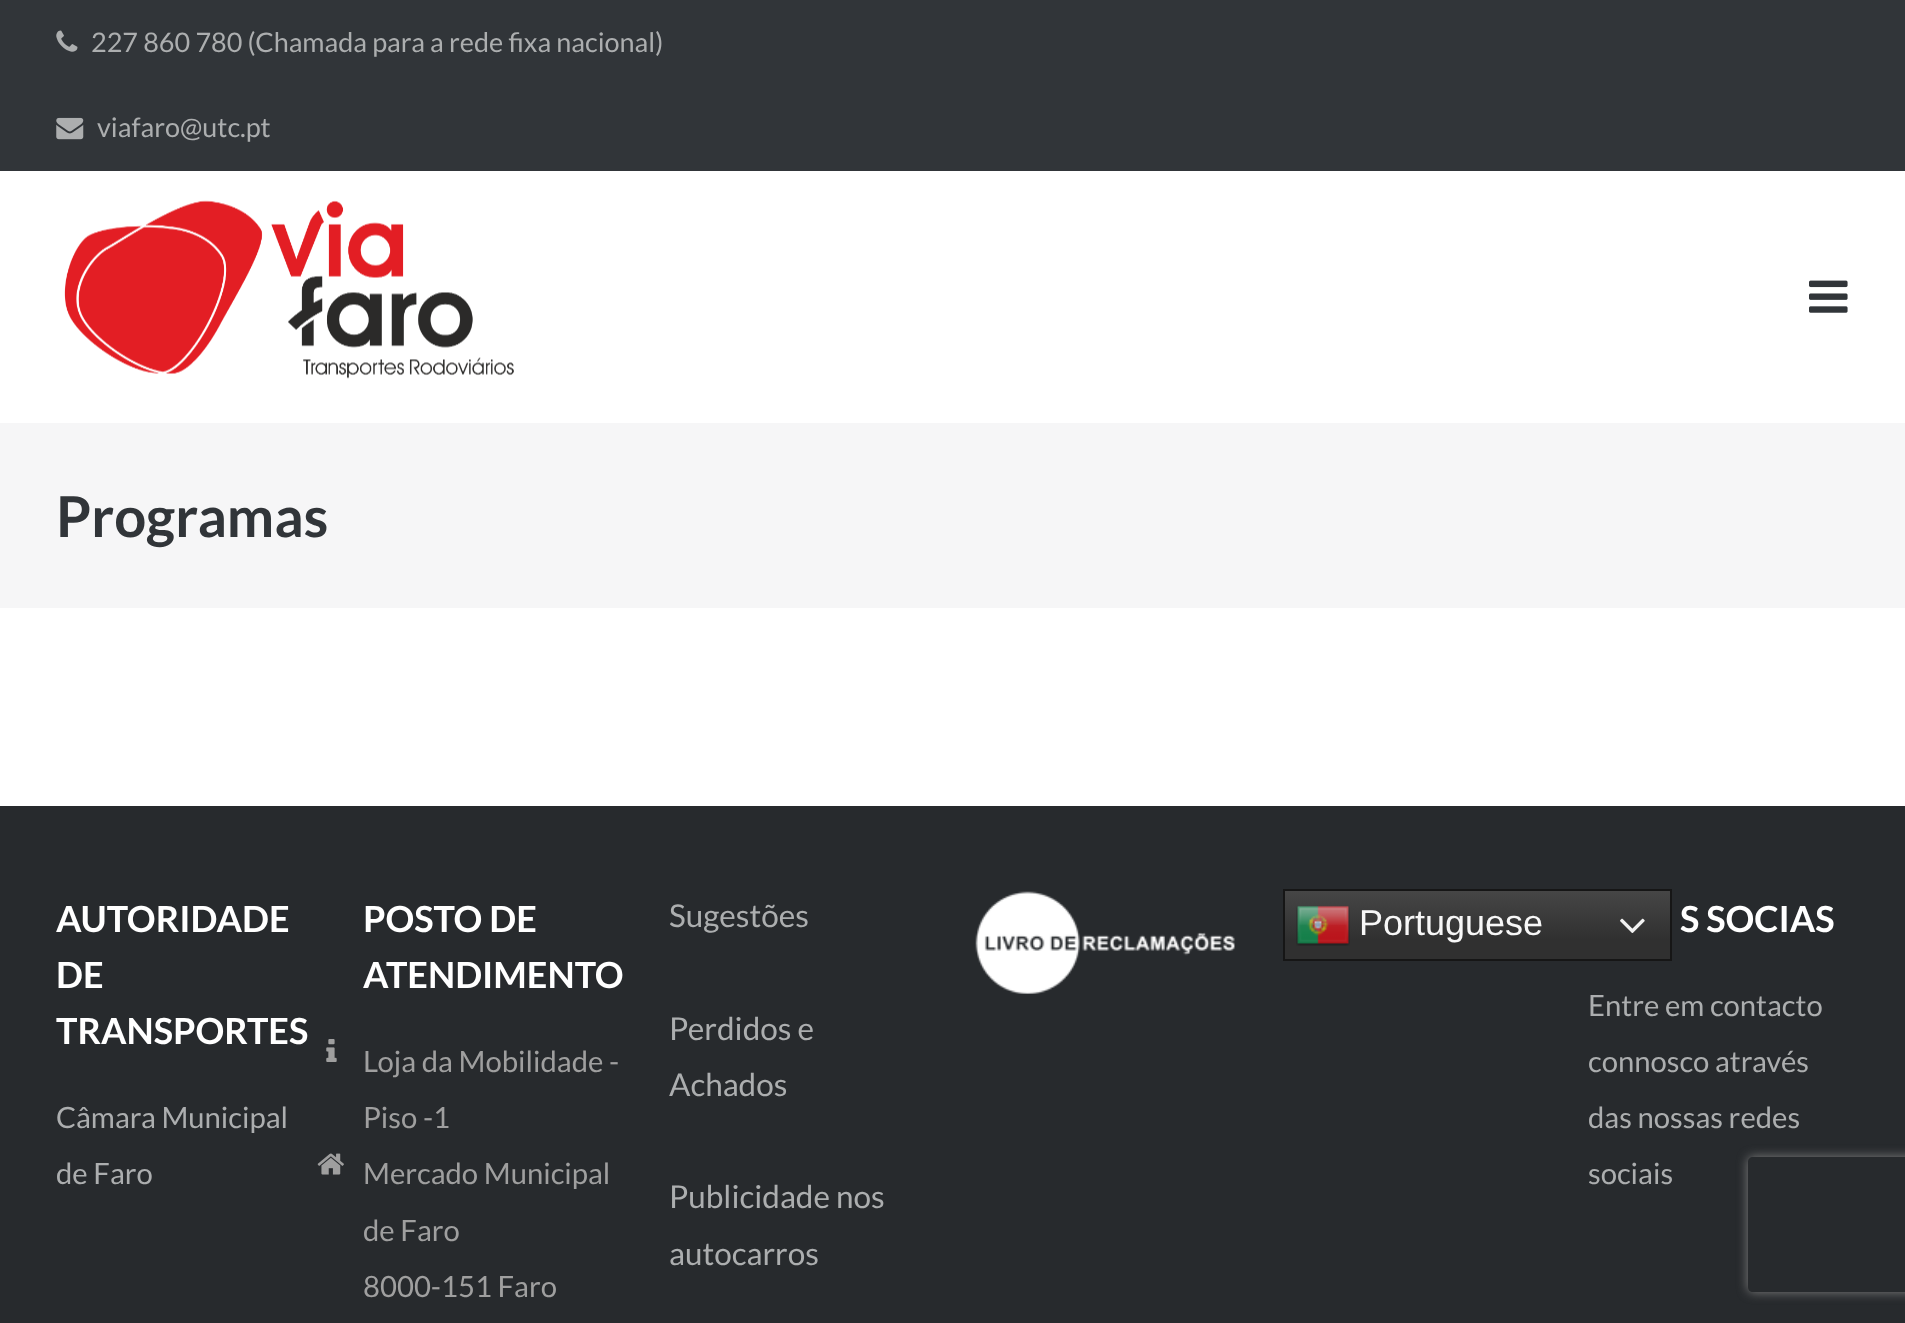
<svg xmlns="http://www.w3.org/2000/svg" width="1905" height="1323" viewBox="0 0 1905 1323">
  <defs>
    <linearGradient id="g1" gradientUnits="userSpaceOnUse" x1="1477" y1="889" x2="1477" y2="961"><stop offset="0" stop-color="rgb(71,71,71)"/><stop offset="0.7" stop-color="rgb(48,48,48)"/></linearGradient>
    <clipPath id="clip1"><path d="M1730 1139H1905V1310H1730ZM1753 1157H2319C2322 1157 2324 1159 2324 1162V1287C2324 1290 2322 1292 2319 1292H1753C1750 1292 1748 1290 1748 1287V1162C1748 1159 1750 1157 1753 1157Z" clip-rule="evenodd"/></clipPath>
  </defs>
  <rect width="100%" height="100%" fill="rgb(255,255,255)"/>
  <rect x="0" y="0" width="1905" height="171" fill="rgb(49,53,57)"/>
  <image x="56" y="30" width="22" height="22" href="pic1.png"/>
  <text x="91" y="52" font-family="Lato" font-size="27" fill="rgb(172,174,175)">227 860 780 (Chamada para a rede fixa nacional)</text>
  <image x="56" y="117" width="28" height="23" href="pic2.png"/>
  <text x="97" y="137" font-family="Lato" font-size="27" fill="rgb(172,174,175)">viafaro@utc.pt</text>
  <image x="64" y="200" width="450" height="179" href="pic3.png"/>
  <image x="1809" y="280" width="39" height="33" href="pic4.png"/>
  <rect x="0" y="423" width="1905" height="185" fill="rgb(246,246,247)"/>
  <text x="56" y="537" font-family="Lato" font-size="56.25" font-weight="bold" fill="rgb(49,53,57)">Programas</text>
  <rect x="0" y="806" width="1905" height="517" fill="rgb(39,42,45)"/>
  <g font-family="Lato" font-size="36" font-weight="bold" fill="rgb(255,255,255)">
    <text>
      <tspan x="56" y="932">AUTORIDADE</tspan>
      <tspan x="56" y="988">DE</tspan>
      <tspan x="56" y="1044">TRANSPORTES</tspan>
    </text>
  </g>
  <g font-family="Lato" font-size="29.25" fill="rgb(172,174,175)">
    <text>
      <tspan x="56" y="1128">Câmara Municipal</tspan>
      <tspan x="56" y="1184">de Faro</tspan>
    </text>
  </g>
  <g font-family="Lato" font-size="36" font-weight="bold" fill="rgb(255,255,255)">
    <text>
      <tspan x="363" y="932">POSTO DE</tspan>
      <tspan x="363" y="988">ATENDIMENTO</tspan>
    </text>
  </g>
  <image x="326" y="1039" width="11" height="23" href="pic5.png"/>
  <g font-family="Lato" font-size="29.25" fill="rgb(159,159,159)">
    <text>
      <tspan x="363" y="1072">Loja da Mobilidade -</tspan>
      <tspan x="363" y="1128">Piso -1</tspan>
    </text>
  </g>
  <image x="317" y="1153" width="27" height="22" href="pic6.png"/>
  <g font-family="Lato" font-size="29.25" fill="rgb(159,159,159)">
    <text>
      <tspan x="363" y="1184">Mercado Municipal</tspan>
      <tspan x="363" y="1241">de Faro</tspan>
      <tspan x="363" y="1297">8000-151 Faro</tspan>
    </text>
  </g>
  <g font-family="Lato" font-size="31.5" fill="rgb(172,174,175)">
    <text x="669" y="927">Sugestões</text>
    <text>
      <tspan x="669" y="1040">Perdidos e</tspan>
      <tspan x="669" y="1096">Achados</tspan>
    </text>
    <text>
      <tspan x="669" y="1208">Publicidade nos</tspan>
      <tspan x="669" y="1265">autocarros</tspan>
    </text>
  </g>
  <image x="975" y="891" width="260" height="103" href="pic7.png"/>
  <rect x="1285" y="891" width="385" height="68" fill="url(#g1)"/>
  <rect x="1284" y="890" width="387" height="70" fill="none" stroke="rgb(22,22,22)" stroke-width="2"/>
  <image x="1296" y="905" width="54" height="41" href="pic8.png"/>
  <text x="1359" y="935" font-family="Liberation Sans" font-size="36" fill="rgb(247,247,247)">Portuguese</text>
  <image x="1620" y="918" width="25" height="15" href="pic9.png"/>
  <text x="1680" y="932" font-family="Lato" font-size="36" font-weight="bold" fill="rgb(255,255,255)">S SOCIAS</text>
  <g font-family="Lato" font-size="29.25" fill="rgb(172,174,175)">
    <text>
      <tspan x="1588" y="1016">Entre em contacto</tspan>
      <tspan x="1588" y="1072">connosco através</tspan>
      <tspan x="1588" y="1128">das nossas redes</tspan>
      <tspan x="1588" y="1184">sociais</tspan>
    </text>
  </g>
  <g clip-path="url(#clip1)">
    <rect x="1748" y="1157" width="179" height="135" rx="5" fill="rgb(128,128,128)" filter="blur(5.5px)"/>
  </g>
</svg>
